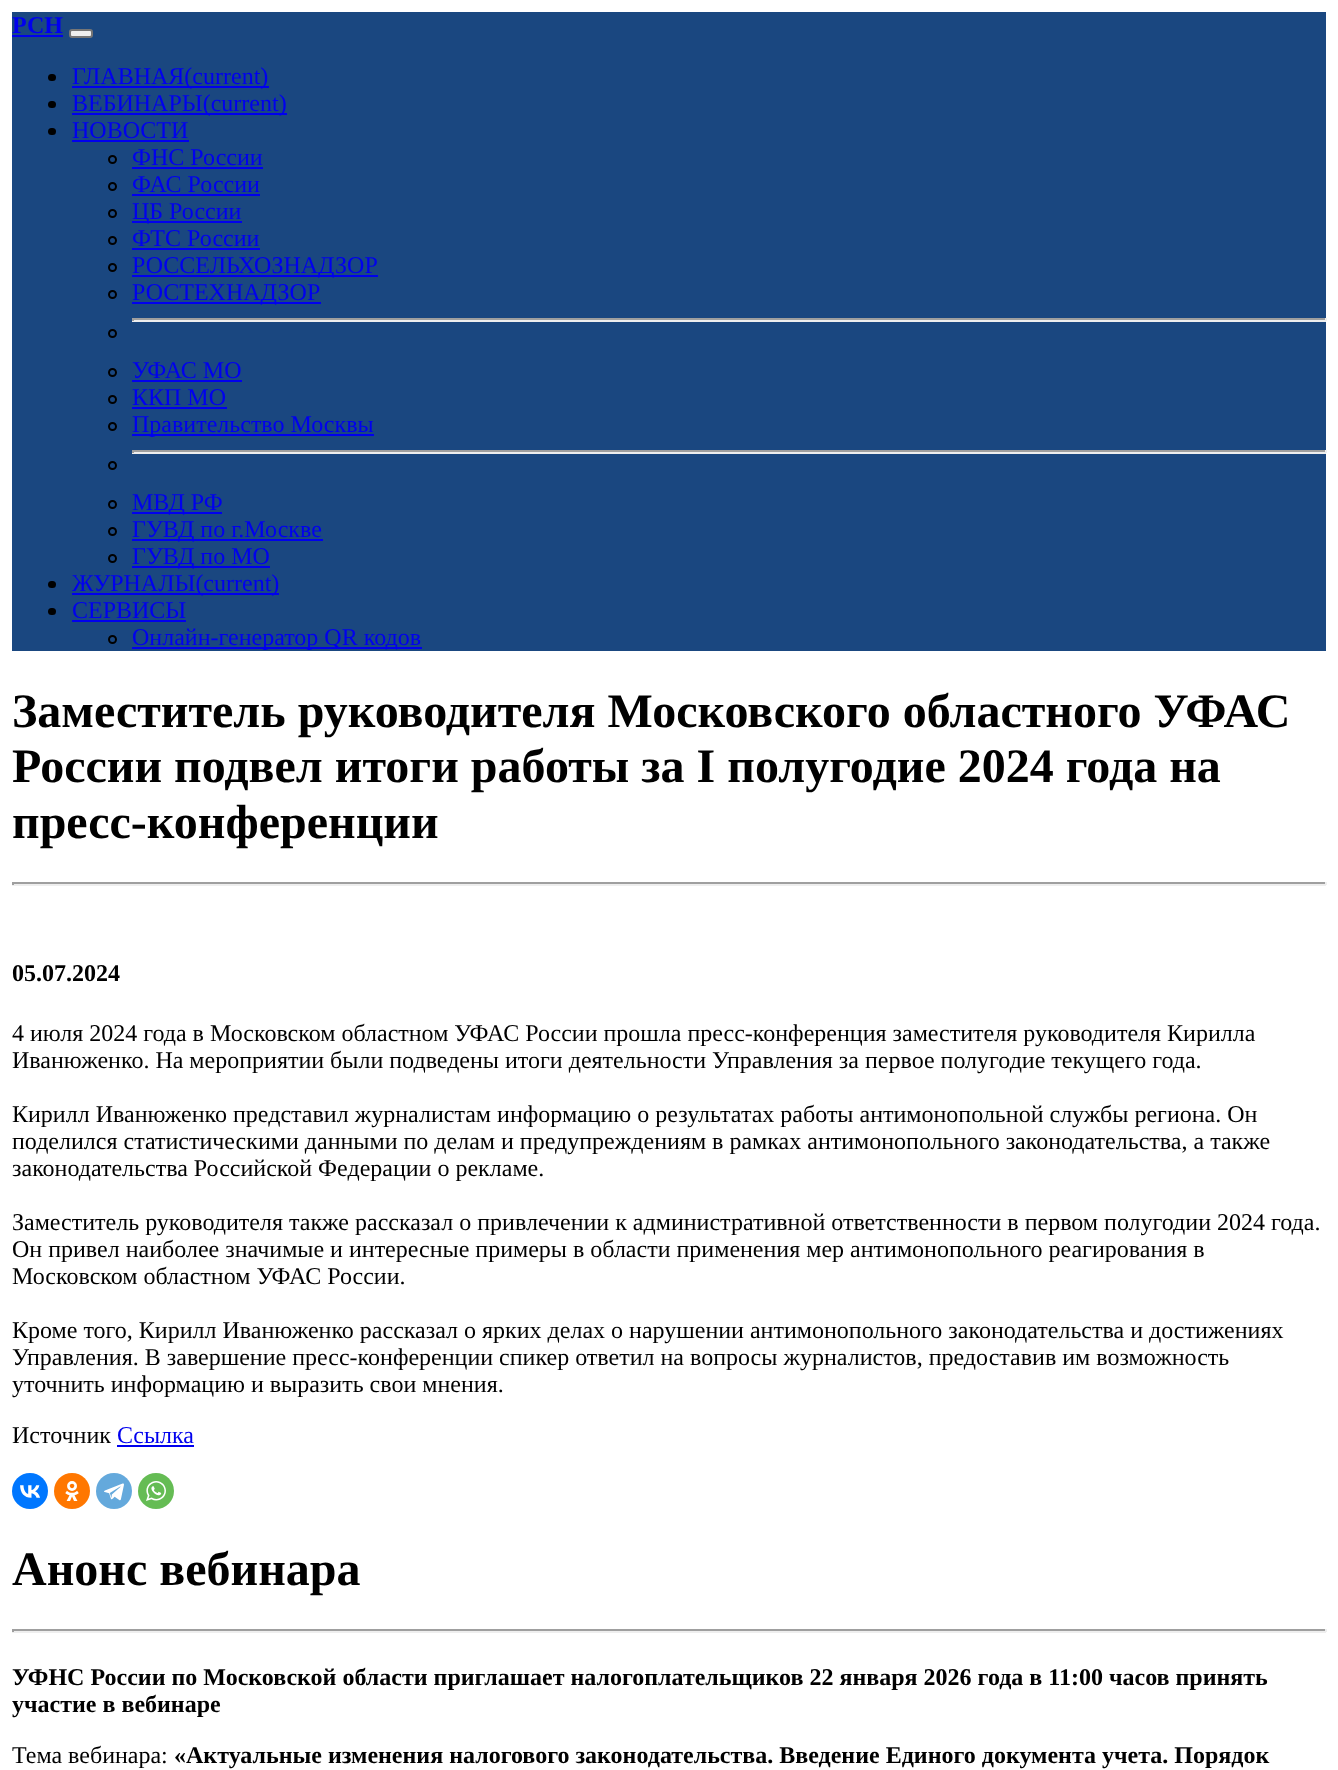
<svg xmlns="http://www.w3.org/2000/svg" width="1338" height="1770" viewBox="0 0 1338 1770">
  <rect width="100%" height="100%" fill="rgb(255,255,255)"/>
  <rect x="12" y="12" width="1314" height="639" fill="rgb(26,71,128)"/>
  <text x="12" y="33" font-family="Liberation Serif" font-size="24" font-weight="bold" fill="rgb(0,0,238)">РСН</text>
  <rect x="12" y="35" width="51" height="2" fill="rgb(0,0,238)"/>
  <rect x="70" y="30" width="22" height="7" rx="2" fill="rgb(239,239,239)" stroke="rgb(118,118,118)" stroke-width="2"/>
  <rect x="48" y="74" width="8" height="7" rx="3.5" fill="rgb(0,0,0)"/>
  <rect x="72" y="86" width="197" height="2" fill="rgb(0,0,238)"/>
  <text x="72" y="84" font-family="Liberation Serif" font-size="24" fill="rgb(0,0,238)">ГЛАВНАЯ(current)</text>
  <rect x="48" y="101" width="8" height="7" rx="3.5" fill="rgb(0,0,0)"/>
  <rect x="72" y="113" width="215" height="2" fill="rgb(0,0,238)"/>
  <text x="72" y="111" font-family="Liberation Serif" font-size="24" fill="rgb(0,0,238)">ВЕБИНАРЫ(current)</text>
  <rect x="48" y="128" width="8" height="7" rx="3.5" fill="rgb(0,0,0)"/>
  <text x="72" y="138" font-family="Liberation Serif" font-size="24" fill="rgb(0,0,238)">НОВОСТИ</text>
  <rect x="72" y="140" width="117" height="2" fill="rgb(0,0,238)"/>
  <circle cx="112.5" cy="159.5" r="3.5" fill="none" stroke="rgb(0,0,0)" stroke-width="2"/>
  <text x="132" y="165" font-family="Liberation Serif" font-size="24" fill="rgb(0,0,238)">ФНС России</text>
  <rect x="132" y="167" width="131" height="2" fill="rgb(0,0,238)"/>
  <circle cx="112.5" cy="186.5" r="3.5" fill="none" stroke="rgb(0,0,0)" stroke-width="2"/>
  <text x="132" y="192" font-family="Liberation Serif" font-size="24" fill="rgb(0,0,238)">ФАС России</text>
  <rect x="132" y="194" width="128" height="2" fill="rgb(0,0,238)"/>
  <circle cx="112.5" cy="213.5" r="3.5" fill="none" stroke="rgb(0,0,0)" stroke-width="2"/>
  <rect x="132" y="221" width="110" height="2" fill="rgb(0,0,238)"/>
  <text x="132" y="219" font-family="Liberation Serif" font-size="24" fill="rgb(0,0,238)">ЦБ России</text>
  <circle cx="112.5" cy="240.5" r="3.5" fill="none" stroke="rgb(0,0,0)" stroke-width="2"/>
  <text x="132" y="246" font-family="Liberation Serif" font-size="24" fill="rgb(0,0,238)">ФТС России</text>
  <rect x="132" y="248" width="128" height="2" fill="rgb(0,0,238)"/>
  <circle cx="112.5" cy="267.5" r="3.5" fill="none" stroke="rgb(0,0,0)" stroke-width="2"/>
  <rect x="132" y="275" width="246" height="2" fill="rgb(0,0,238)"/>
  <text x="132" y="273" font-family="Liberation Serif" font-size="24" fill="rgb(0,0,238)">РОССЕЛЬХОЗНАДЗОР</text>
  <circle cx="112.5" cy="294.5" r="3.5" fill="none" stroke="rgb(0,0,0)" stroke-width="2"/>
  <rect x="132" y="302" width="189" height="2" fill="rgb(0,0,238)"/>
  <text x="132" y="300" font-family="Liberation Serif" font-size="24" fill="rgb(0,0,238)">РОСТЕХНАДЗОР</text>
  <rect x="132" y="318" width="1194" height="2" fill="rgb(159,159,159)"/>
  <rect x="1325" y="318" width="2" height="3" fill="rgb(238,238,238)"/>
  <rect x="132" y="320" width="1194" height="2" fill="rgb(238,238,238)"/>
  <rect x="132" y="318" width="2" height="3" fill="rgb(159,159,159)"/>
  <circle cx="112.5" cy="333.5" r="3.5" fill="none" stroke="rgb(0,0,0)" stroke-width="2"/>
  <circle cx="112.5" cy="372.5" r="3.5" fill="none" stroke="rgb(0,0,0)" stroke-width="2"/>
  <text x="132" y="378" font-family="Liberation Serif" font-size="24" fill="rgb(0,0,238)">УФАС МО</text>
  <rect x="132" y="380" width="110" height="2" fill="rgb(0,0,238)"/>
  <circle cx="112.5" cy="399.5" r="3.5" fill="none" stroke="rgb(0,0,0)" stroke-width="2"/>
  <text x="132" y="405" font-family="Liberation Serif" font-size="24" fill="rgb(0,0,238)">ККП МО</text>
  <rect x="132" y="407" width="95" height="2" fill="rgb(0,0,238)"/>
  <circle cx="112.5" cy="426.5" r="3.5" fill="none" stroke="rgb(0,0,0)" stroke-width="2"/>
  <rect x="132" y="434" width="242" height="2" fill="rgb(0,0,238)"/>
  <text x="132" y="432" font-family="Liberation Serif" font-size="24" fill="rgb(0,0,238)">Правительство Москвы</text>
  <rect x="132" y="450" width="1194" height="2" fill="rgb(159,159,159)"/>
  <rect x="1325" y="450" width="2" height="3" fill="rgb(238,238,238)"/>
  <rect x="132" y="452" width="1194" height="2" fill="rgb(238,238,238)"/>
  <rect x="132" y="450" width="2" height="3" fill="rgb(159,159,159)"/>
  <circle cx="112.5" cy="465.5" r="3.5" fill="none" stroke="rgb(0,0,0)" stroke-width="2"/>
  <circle cx="112.5" cy="504.5" r="3.5" fill="none" stroke="rgb(0,0,0)" stroke-width="2"/>
  <rect x="132" y="512" width="90" height="2" fill="rgb(0,0,238)"/>
  <text x="132" y="510" font-family="Liberation Serif" font-size="24" fill="rgb(0,0,238)">МВД РФ</text>
  <circle cx="112.5" cy="531.5" r="3.5" fill="none" stroke="rgb(0,0,0)" stroke-width="2"/>
  <rect x="132" y="539" width="191" height="2" fill="rgb(0,0,238)"/>
  <text x="132" y="537" font-family="Liberation Serif" font-size="24" fill="rgb(0,0,238)">ГУВД по г.Москве</text>
  <circle cx="112.5" cy="558.5" r="3.5" fill="none" stroke="rgb(0,0,0)" stroke-width="2"/>
  <rect x="132" y="566" width="138" height="2" fill="rgb(0,0,238)"/>
  <text x="132" y="564" font-family="Liberation Serif" font-size="24" fill="rgb(0,0,238)">ГУВД по МО</text>
  <rect x="48" y="581" width="8" height="7" rx="3.5" fill="rgb(0,0,0)"/>
  <rect x="72" y="593" width="207" height="2" fill="rgb(0,0,238)"/>
  <text x="72" y="591" font-family="Liberation Serif" font-size="24" fill="rgb(0,0,238)">ЖУРНАЛЫ(current)</text>
  <rect x="48" y="608" width="8" height="7" rx="3.5" fill="rgb(0,0,0)"/>
  <text x="72" y="618" font-family="Liberation Serif" font-size="24" fill="rgb(0,0,238)">СЕРВИСЫ</text>
  <rect x="72" y="620" width="114" height="2" fill="rgb(0,0,238)"/>
  <circle cx="112.5" cy="639.5" r="3.5" fill="none" stroke="rgb(0,0,0)" stroke-width="2"/>
  <rect x="132" y="647" width="290" height="2" fill="rgb(0,0,238)"/>
  <text x="132" y="645" font-family="Liberation Serif" font-size="24" fill="rgb(0,0,238)">Онлайн-генератор QR кодов</text>
  <g font-family="Liberation Serif" font-size="48" font-weight="bold" fill="rgb(0,0,0)">
    <text>
      <tspan x="12" y="727">Заместитель руководителя Московского областного УФАС</tspan>
      <tspan x="12" y="782">России подвел итоги работы за I полугодие 2024 года на</tspan>
      <tspan x="12" y="838">пресс-конференции</tspan>
    </text>
  </g>
  <rect x="12" y="882" width="1314" height="2" fill="rgb(159,159,159)"/>
  <rect x="1325" y="882" width="2" height="3" fill="rgb(238,238,238)"/>
  <rect x="12" y="884" width="1314" height="2" fill="rgb(238,238,238)"/>
  <rect x="12" y="882" width="2" height="3" fill="rgb(159,159,159)"/>
  <text x="12" y="981" font-family="Liberation Serif" font-size="24" font-weight="bold" fill="rgb(0,0,0)">05.07.2024</text>
  <g font-family="Liberation Serif" font-size="24" fill="rgb(0,0,0)">
    <text>
      <tspan x="12" y="1041">4 июля 2024 года в Московском областном УФАС России прошла пресс-конференция заместителя руководителя Кирилла</tspan>
      <tspan x="12" y="1068">Иванюженко. На мероприятии были подведены итоги деятельности Управления за первое полугодие текущего года.</tspan>
    </text>
    <text>
      <tspan x="12" y="1122">Кирилл Иванюженко представил журналистам информацию о результатах работы антимонопольной службы региона. Он</tspan>
      <tspan x="12" y="1149">поделился статистическими данными по делам и предупреждениям в рамках антимонопольного законодательства, а также</tspan>
      <tspan x="12" y="1176">законодательства Российской Федерации о рекламе.</tspan>
    </text>
    <text>
      <tspan x="12" y="1230">Заместитель руководителя также рассказал о привлечении к административной ответственности в первом полугодии 2024 года.</tspan>
      <tspan x="12" y="1257">Он привел наиболее значимые и интересные примеры в области применения мер антимонопольного реагирования в</tspan>
      <tspan x="12" y="1284">Московском областном УФАС России.</tspan>
    </text>
    <text>
      <tspan x="12" y="1338">Кроме того, Кирилл Иванюженко рассказал о ярких делах о нарушении антимонопольного законодательства и достижениях</tspan>
      <tspan x="12" y="1365">Управления. В завершение пресс-конференции спикер ответил на вопросы журналистов, предоставив им возможность</tspan>
      <tspan x="12" y="1392">уточнить информацию и выразить свои мнения.</tspan>
    </text>
    <text x="12" y="1443">Источник</text>
  </g>
  <text x="117" y="1443" font-family="Liberation Serif" font-size="24" fill="rgb(0,0,238)">Ссылка</text>
  <rect x="117" y="1445" width="77" height="2" fill="rgb(0,0,238)"/>
  <circle cx="30" cy="1491" r="18" fill="rgb(0,119,255)"/>
  <image x="20" y="1485" width="20" height="13" href="pic1.png"/>
  <circle cx="72" cy="1491" r="18" fill="rgb(255,119,0)"/>
  <image x="65" y="1481" width="14" height="20" href="pic2.png"/>
  <circle cx="114" cy="1491" r="18" fill="rgb(100,169,220)"/>
  <image x="104" y="1483" width="20" height="18" href="pic3.png"/>
  <circle cx="156" cy="1491" r="18" fill="rgb(101,188,84)"/>
  <image x="146" y="1481" width="20" height="20" href="pic4.png"/>
  <text x="12" y="1585" font-family="Liberation Serif" font-size="48" font-weight="bold" fill="rgb(0,0,0)">Анонс вебинара</text>
  <rect x="12" y="1629" width="1314" height="2" fill="rgb(159,159,159)"/>
  <rect x="1325" y="1629" width="2" height="3" fill="rgb(238,238,238)"/>
  <rect x="12" y="1631" width="1314" height="2" fill="rgb(238,238,238)"/>
  <rect x="12" y="1629" width="2" height="3" fill="rgb(159,159,159)"/>
  <g font-family="Liberation Serif" font-size="24" font-weight="bold" fill="rgb(0,0,0)">
    <text>
      <tspan x="12" y="1685">УФНС России по Московской области приглашает налогоплательщиков 22 января 2026 года в 11:00 часов принять</tspan>
      <tspan x="12" y="1712">участие в вебинаре</tspan>
    </text>
  </g>
  <text x="12" y="1763" font-family="Liberation Serif" font-size="24" fill="rgb(0,0,0)">Тема вебинара:</text>
  <text x="174" y="1763" font-family="Liberation Serif" font-size="24" font-weight="bold" fill="rgb(0,0,0)">«Актуальные изменения налогового законодательства. Введение Единого документа учета. Порядок</text>
</svg>
